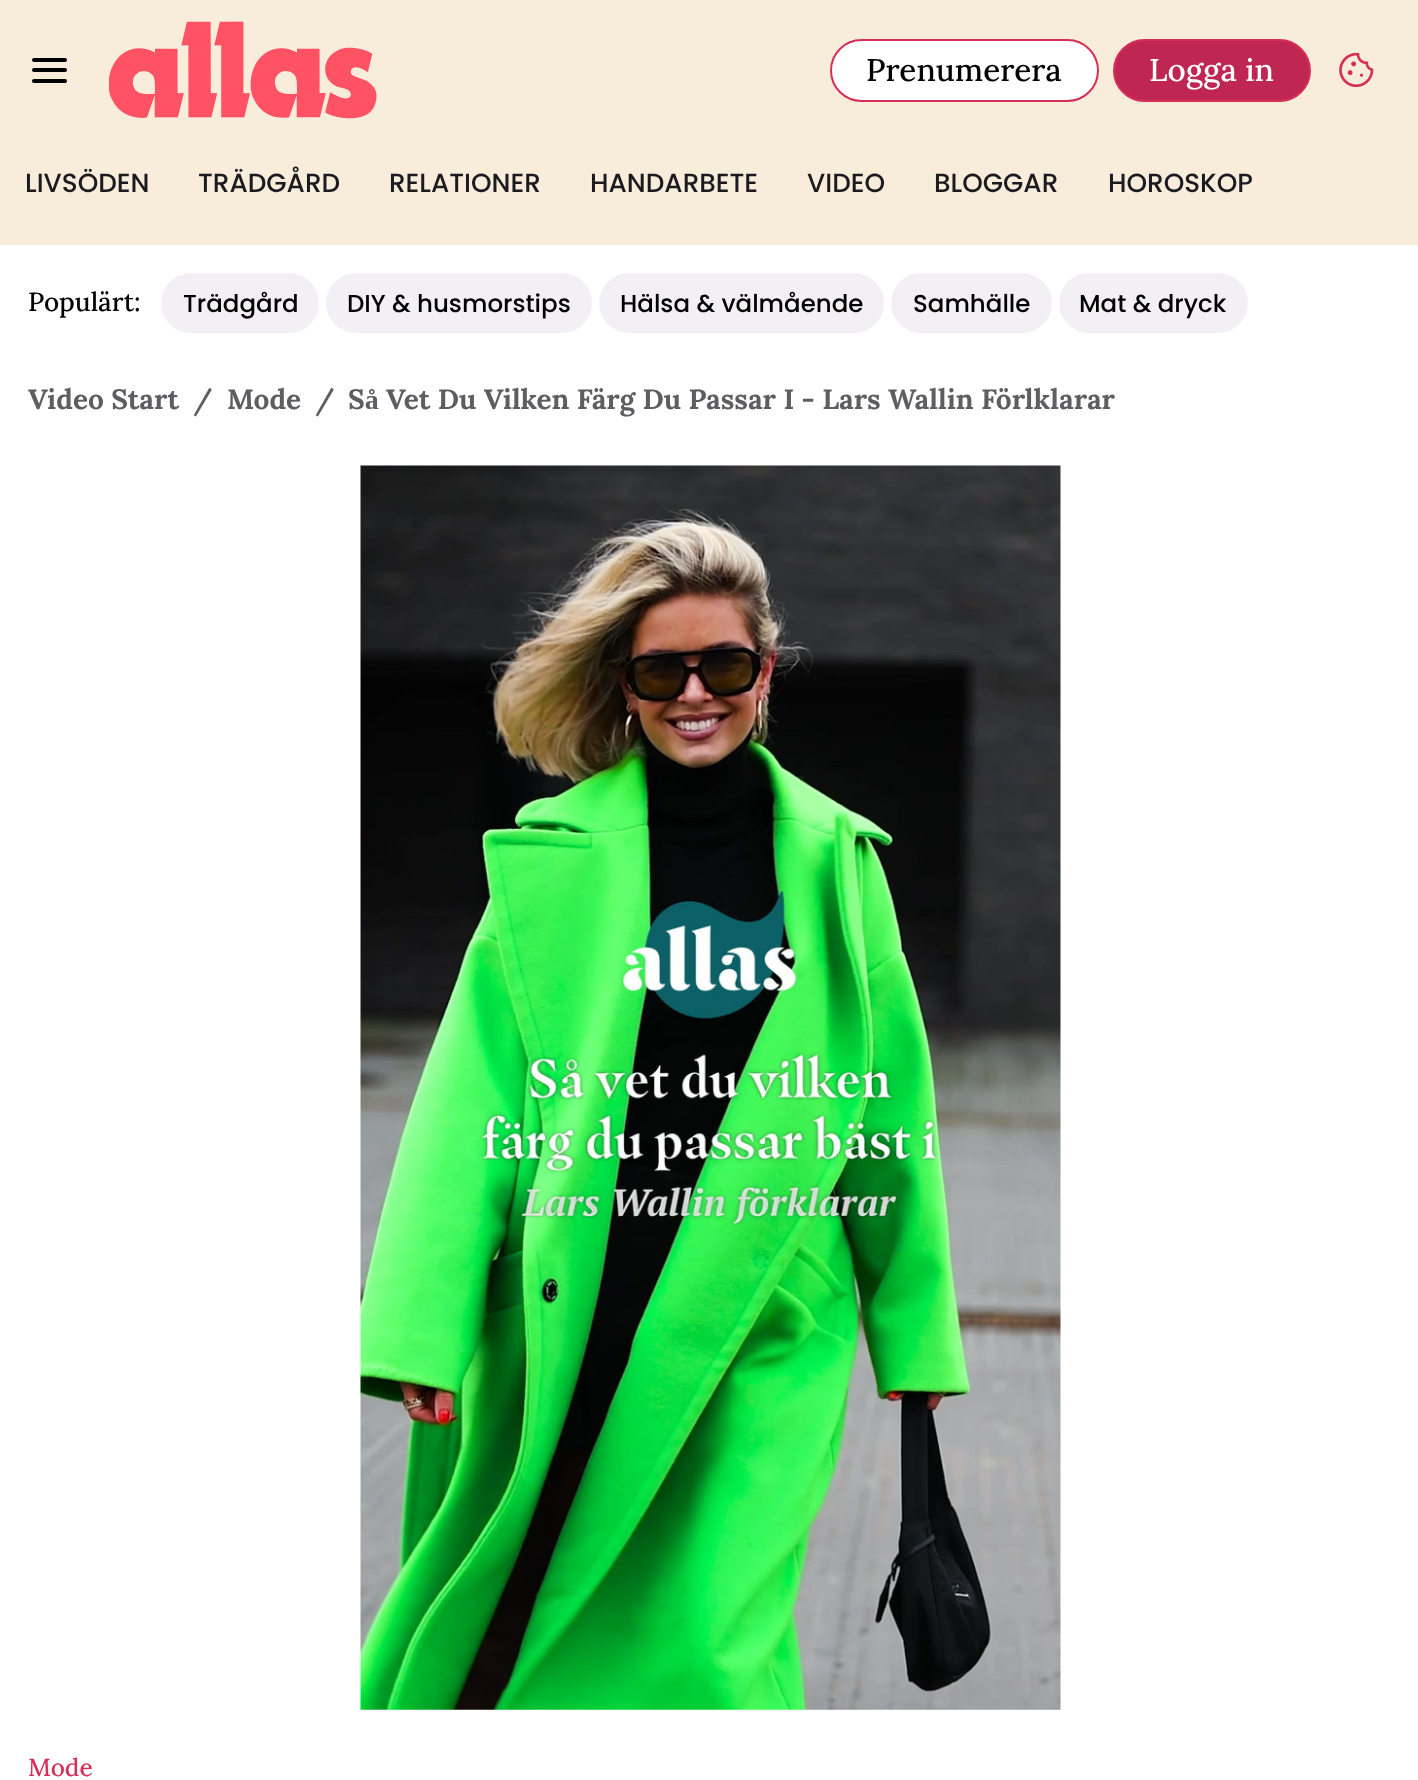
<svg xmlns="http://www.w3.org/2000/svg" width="1418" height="1780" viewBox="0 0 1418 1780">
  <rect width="100%" height="100%" fill="rgb(255,255,255)"/>
  <rect x="0" y="0" width="1418" height="245" fill="rgb(248,236,219)"/>
  <rect x="32" y="58" width="35" height="4" rx="2" fill="rgb(0,0,0)"/>
  <rect x="32" y="68" width="35" height="4" rx="2" fill="rgb(0,0,0)"/>
  <rect x="32" y="79" width="35" height="4" rx="2" fill="rgb(0,0,0)"/>
  <image x="109" y="21" width="268" height="98" href="pic1.png"/>
  <rect x="831" y="40" width="267" height="61" rx="30.5" fill="rgb(255,255,255)" stroke="rgb(214,47,87)" stroke-width="2"/>
  <text x="866" y="81" font-family="Lora" font-size="31.5" font-weight="500" fill="rgb(0,0,0)">Prenumerera</text>
  <rect x="1114" y="40" width="196" height="61" rx="30.5" fill="rgb(191,39,82)" stroke="rgb(214,47,87)" stroke-width="2"/>
  <text x="1149" y="81" font-family="Lora" font-size="31.5" font-weight="500" fill="rgb(255,255,255)">Logga in</text>
  <image x="1339" y="52" width="35" height="36" href="pic2.png"/>
  <g font-family="Poppins" font-size="26.25" font-weight="500" fill="rgb(27,27,31)">
    <text x="25" y="192">LIVSÖDEN</text>
    <text x="198" y="192">TRÄDGÅRD</text>
    <text x="389" y="192">RELATIONER</text>
    <text x="590" y="192">HANDARBETE</text>
    <text x="807" y="192">VIDEO</text>
    <text x="934" y="192">BLOGGAR</text>
    <text x="1108" y="192">HOROSKOP</text>
  </g>
  <text x="28" y="311" font-family="Lora" font-size="26.25" font-weight="500" fill="rgb(0,0,0)">Populärt:</text>
  <rect x="161" y="273" width="158" height="60" rx="30" fill="rgb(242,240,244)"/>
  <text x="183" y="312" font-family="Poppins" font-size="24.5" font-weight="500" fill="rgb(0,0,0)">Trädgård</text>
  <rect x="326" y="273" width="266" height="60" rx="30" fill="rgb(242,240,244)"/>
  <text x="347" y="312" font-family="Poppins" font-size="24.5" font-weight="500" fill="rgb(0,0,0)">DIY &amp; husmorstips</text>
  <rect x="599" y="273" width="285" height="60" rx="30" fill="rgb(242,240,244)"/>
  <text x="620" y="312" font-family="Poppins" font-size="24.5" font-weight="500" fill="rgb(0,0,0)">Hälsa &amp; välmående</text>
  <rect x="891" y="273" width="161" height="60" rx="30" fill="rgb(242,240,244)"/>
  <text x="913" y="312" font-family="Poppins" font-size="24.5" font-weight="500" fill="rgb(0,0,0)">Samhälle</text>
  <rect x="1059" y="273" width="189" height="60" rx="30" fill="rgb(242,240,244)"/>
  <text x="1079" y="312" font-family="Poppins" font-size="24.5" font-weight="500" fill="rgb(0,0,0)">Mat &amp; dryck</text>
  <g font-family="Lora" font-size="28" font-weight="bold" fill="rgb(94,94,98)">
    <text x="28" y="409">Video Start</text>
    <text x="193" y="409">/</text>
    <text x="227" y="409">Mode</text>
    <text x="315" y="409">/</text>
    <text x="348" y="409">Så Vet Du Vilken Färg Du Passar I - Lars Wallin Förlklarar</text>
  </g>
  <image x="360" y="465" width="701" height="1245" href="pic3.png"/>
  <text x="28" y="1776" font-family="Lora" font-size="24.5" font-weight="500" fill="rgb(214,47,87)">Mode</text>
</svg>
